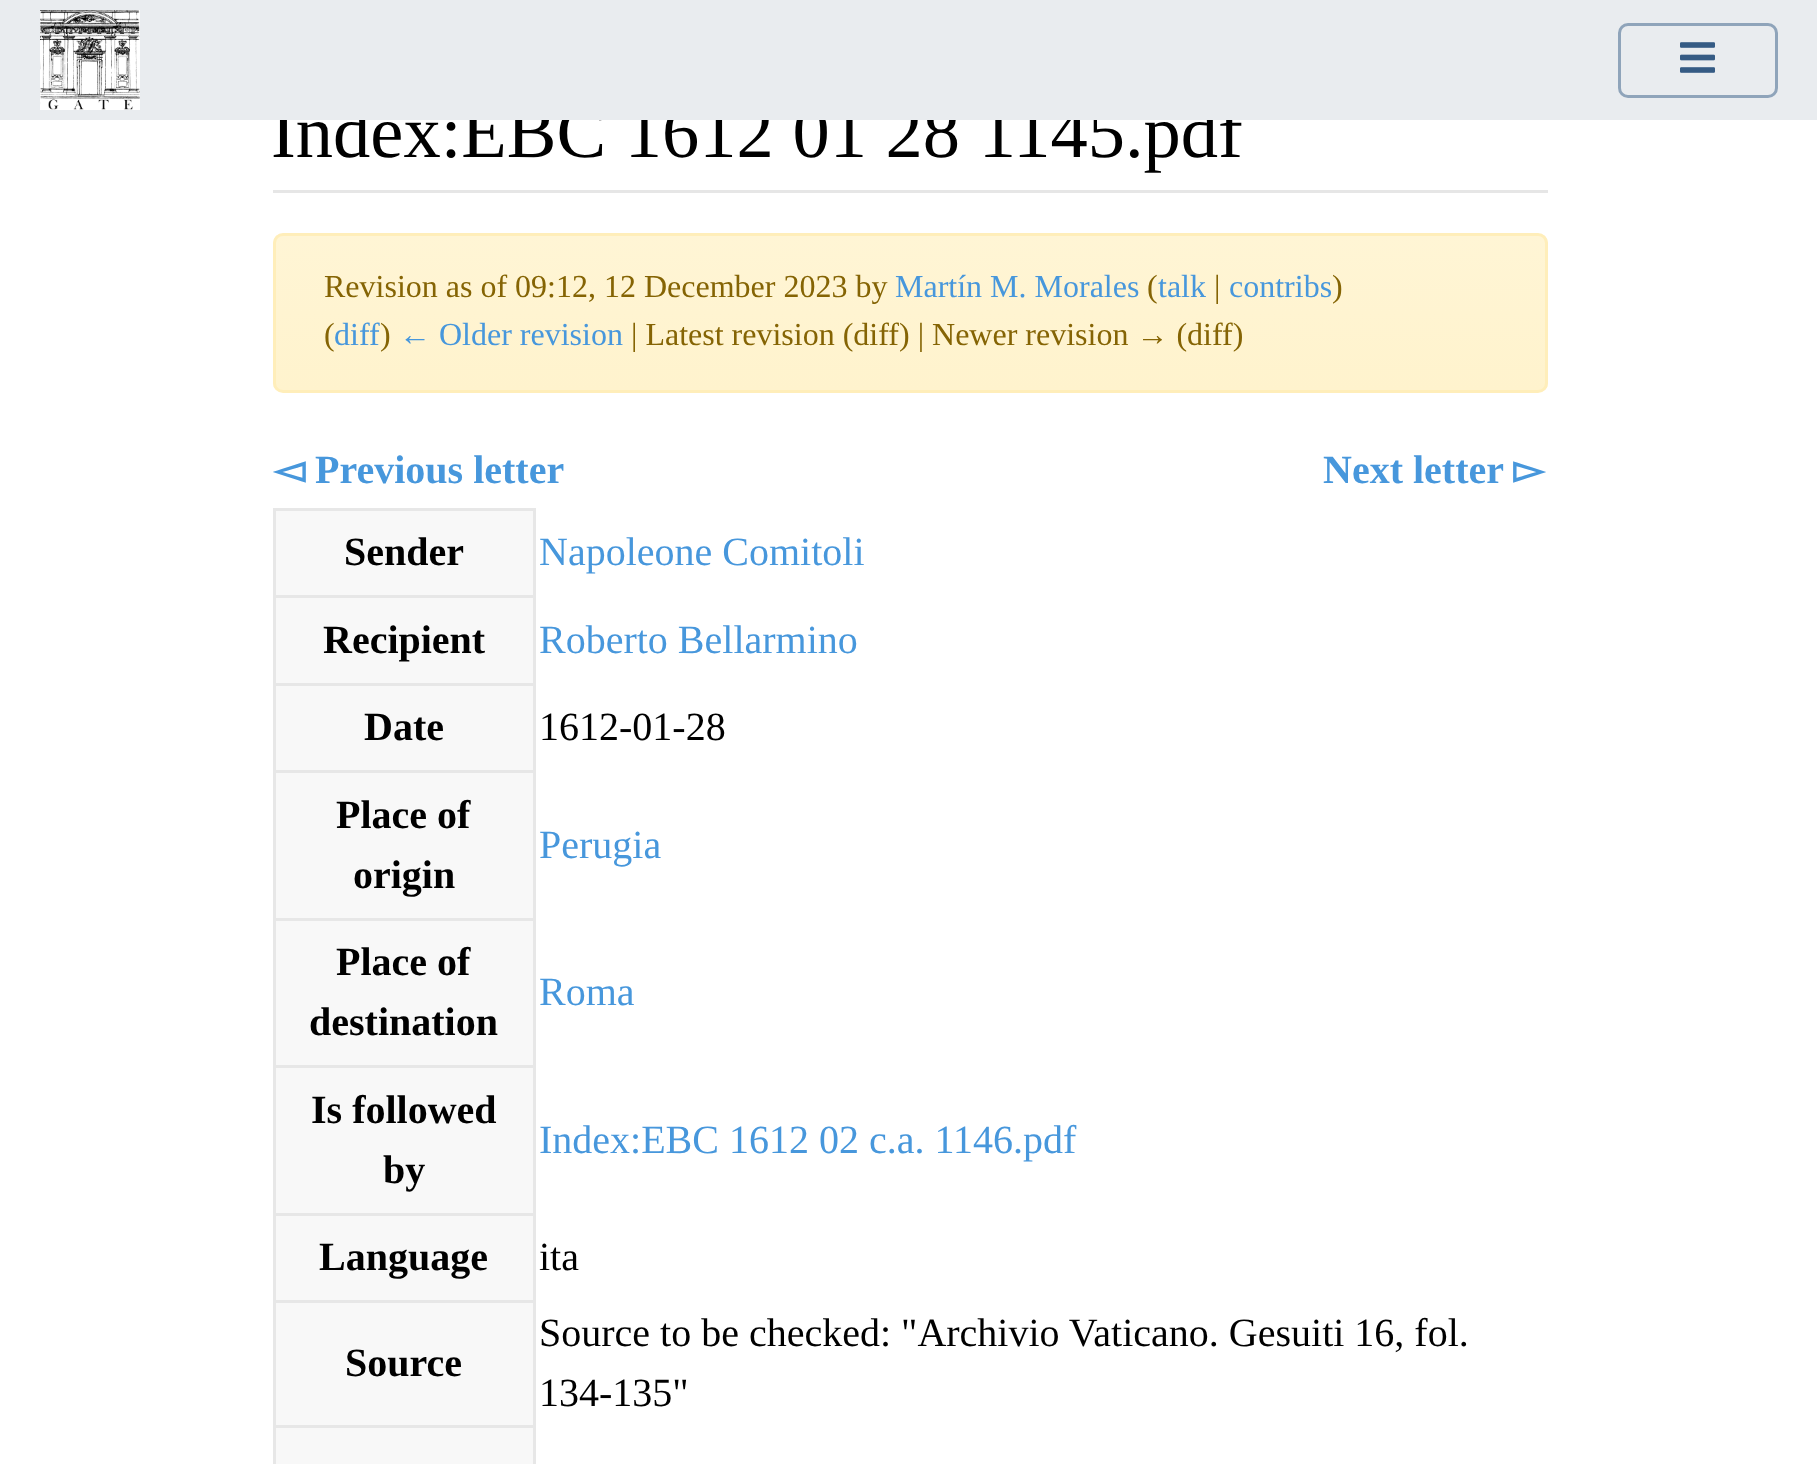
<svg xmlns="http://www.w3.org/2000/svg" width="1817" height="1464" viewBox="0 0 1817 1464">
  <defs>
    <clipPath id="clip1"><rect x="273" y="233" width="1275" height="160" rx="10"/></clipPath>
    <linearGradient id="g1" gradientUnits="userSpaceOnUse" x1="910" y1="235" x2="910" y2="390"><stop offset="0" stop-color="rgb(255,245,213)"/><stop offset="1" stop-color="rgb(255,243,205)"/></linearGradient>
  </defs>
  <rect width="100%" height="100%" fill="rgb(255,255,255)"/>
  <text x="271" y="157" font-family="Liberation Serif" font-size="74.5" fill="rgb(0,0,0)">Index:EBC 1612 01 28 1145.pdf</text>
  <rect x="0" y="0" width="1817" height="120" fill="rgb(233,236,239)"/>
  <image x="40" y="10" width="100" height="100" href="pic1.png"/>
  <rect x="1619.5" y="24.5" width="157" height="72" rx="8.5" fill="none" stroke="rgb(143,164,186)" stroke-width="3"/>
  <image x="1680" y="42" width="35" height="31" href="pic2.png"/>
  <rect x="273" y="190" width="1275" height="3" fill="rgb(230,230,230)"/>
  <g clip-path="url(#clip1)">
    <rect x="273" y="235" width="1275" height="155" fill="url(#g1)"/>
  </g>
  <rect x="274.5" y="234.5" width="1272" height="157" rx="8.5" fill="none" stroke="rgb(255,238,186)" stroke-width="3"/>
  <text x="324" y="297" font-family="Liberation Serif" font-size="32" fill="rgb(133,100,4)">Revision as of 09:12, 12 December 2023 by</text>
  <text x="895" y="297" font-family="Liberation Serif" font-size="32" fill="rgb(71,151,220)">Martín M. Morales</text>
  <text x="1147" y="297" font-family="Liberation Serif" font-size="32" fill="rgb(133,100,4)">(</text>
  <text x="1158" y="297" font-family="Liberation Serif" font-size="32" fill="rgb(71,151,220)">talk</text>
  <text x="1214" y="297" font-family="Liberation Serif" font-size="32" fill="rgb(133,100,4)">|</text>
  <text x="1229" y="297" font-family="Liberation Serif" font-size="32" fill="rgb(71,151,220)">contribs</text>
  <g font-family="Liberation Serif" font-size="32" fill="rgb(133,100,4)">
    <text x="1332" y="297">)</text>
    <text x="324" y="345">(</text>
  </g>
  <text x="334" y="345" font-family="Liberation Serif" font-size="32" fill="rgb(71,151,220)">diff</text>
  <text x="380" y="345" font-family="Liberation Serif" font-size="32" fill="rgb(133,100,4)">)</text>
  <text x="399" y="345" font-family="Liberation Serif" font-size="32" fill="rgb(71,151,220)">← Older revision</text>
  <text x="631" y="345" font-family="Liberation Serif" font-size="32" fill="rgb(133,100,4)">| Latest revision (diff) | Newer revision → (diff)</text>
  <text x="274" y="483" font-family="DejaVu Sans" font-size="40" font-weight="bold" fill="rgb(71,151,220)">◅</text>
  <g font-family="Liberation Serif" font-size="40" font-weight="bold" fill="rgb(71,151,220)">
    <text x="315" y="483">Previous letter</text>
    <text x="1323" y="483">Next letter</text>
  </g>
  <text x="1513" y="483" font-family="DejaVu Sans" font-size="40" font-weight="bold" fill="rgb(71,151,220)">▻</text>
  <rect x="276" y="511" width="257" height="84" fill="rgb(248,248,248)"/>
  <rect x="273" y="508" width="262" height="3" fill="rgb(231,231,231)"/>
  <rect x="273" y="595" width="262" height="3" fill="rgb(231,231,231)"/>
  <rect x="273" y="683" width="262" height="3" fill="rgb(231,231,231)"/>
  <rect x="273" y="770" width="262" height="3" fill="rgb(231,231,231)"/>
  <rect x="273" y="918" width="262" height="3" fill="rgb(231,231,231)"/>
  <rect x="273" y="1065" width="262" height="3" fill="rgb(231,231,231)"/>
  <rect x="273" y="1213" width="262" height="3" fill="rgb(231,231,231)"/>
  <rect x="273" y="1300" width="262" height="3" fill="rgb(231,231,231)"/>
  <rect x="273" y="1425" width="262" height="3" fill="rgb(231,231,231)"/>
  <rect x="533" y="1425" width="3" height="39" fill="rgb(231,231,231)"/>
  <rect x="533" y="1300" width="3" height="128" fill="rgb(231,231,231)"/>
  <rect x="533" y="1213" width="3" height="90" fill="rgb(231,231,231)"/>
  <rect x="533" y="1065" width="3" height="150" fill="rgb(231,231,231)"/>
  <rect x="533" y="918" width="3" height="150" fill="rgb(231,231,231)"/>
  <rect x="533" y="770" width="3" height="150" fill="rgb(231,231,231)"/>
  <rect x="533" y="683" width="3" height="90" fill="rgb(231,231,231)"/>
  <rect x="533" y="595" width="3" height="90" fill="rgb(231,231,231)"/>
  <rect x="533" y="508" width="3" height="90" fill="rgb(231,231,231)"/>
  <rect x="273" y="1425" width="3" height="39" fill="rgb(231,231,231)"/>
  <rect x="273" y="1300" width="3" height="128" fill="rgb(231,231,231)"/>
  <rect x="273" y="1213" width="3" height="90" fill="rgb(231,231,231)"/>
  <rect x="273" y="1065" width="3" height="150" fill="rgb(231,231,231)"/>
  <rect x="273" y="918" width="3" height="150" fill="rgb(231,231,231)"/>
  <rect x="273" y="770" width="3" height="150" fill="rgb(231,231,231)"/>
  <rect x="273" y="683" width="3" height="90" fill="rgb(231,231,231)"/>
  <rect x="273" y="595" width="3" height="90" fill="rgb(231,231,231)"/>
  <rect x="273" y="508" width="3" height="90" fill="rgb(231,231,231)"/>
  <text x="344" y="565" font-family="Liberation Serif" font-size="40" font-weight="bold" fill="rgb(0,0,0)">Sender</text>
  <text x="539" y="565" font-family="Liberation Serif" font-size="40" fill="rgb(71,151,220)">Napoleone Comitoli</text>
  <rect x="276" y="598" width="257" height="85" fill="rgb(248,248,248)"/>
  <text x="323" y="653" font-family="Liberation Serif" font-size="40" font-weight="bold" fill="rgb(0,0,0)">Recipient</text>
  <text x="539" y="653" font-family="Liberation Serif" font-size="40" fill="rgb(71,151,220)">Roberto Bellarmino</text>
  <rect x="276" y="686" width="257" height="84" fill="rgb(248,248,248)"/>
  <text x="364" y="740" font-family="Liberation Serif" font-size="40" font-weight="bold" fill="rgb(0,0,0)">Date</text>
  <text x="539" y="740" font-family="Liberation Serif" font-size="40" fill="rgb(0,0,0)">1612-01-28</text>
  <rect x="276" y="773" width="257" height="145" fill="rgb(248,248,248)"/>
  <g font-family="Liberation Serif" font-size="40" font-weight="bold" fill="rgb(0,0,0)">
    <text x="336" y="828">Place of</text>
    <text x="353" y="888">origin</text>
  </g>
  <text x="539" y="858" font-family="Liberation Serif" font-size="40" fill="rgb(71,151,220)">Perugia</text>
  <rect x="276" y="921" width="257" height="144" fill="rgb(248,248,248)"/>
  <g font-family="Liberation Serif" font-size="40" font-weight="bold" fill="rgb(0,0,0)">
    <text x="336" y="975">Place of</text>
    <text x="309" y="1035">destination</text>
  </g>
  <text x="539" y="1005" font-family="Liberation Serif" font-size="40" fill="rgb(71,151,220)">Roma</text>
  <rect x="276" y="1068" width="257" height="145" fill="rgb(248,248,248)"/>
  <g font-family="Liberation Serif" font-size="40" font-weight="bold" fill="rgb(0,0,0)">
    <text x="311" y="1123">Is followed</text>
    <text x="383" y="1183">by</text>
  </g>
  <text x="539" y="1153" font-family="Liberation Serif" font-size="40" fill="rgb(71,151,220)">Index:EBC 1612 02 c.a. 1146.pdf</text>
  <rect x="276" y="1216" width="257" height="84" fill="rgb(248,248,248)"/>
  <text x="319" y="1270" font-family="Liberation Serif" font-size="40" font-weight="bold" fill="rgb(0,0,0)">Language</text>
  <text x="539" y="1270" font-family="Liberation Serif" font-size="40" fill="rgb(0,0,0)">ita</text>
  <rect x="276" y="1303" width="257" height="122" fill="rgb(248,248,248)"/>
  <text x="345" y="1376" font-family="Liberation Serif" font-size="40" font-weight="bold" fill="rgb(0,0,0)">Source</text>
  <g font-family="Liberation Serif" font-size="40" fill="rgb(0,0,0)">
    <text>
      <tspan x="539" y="1346">Source to be checked: "Archivio Vaticano. Gesuiti 16, fol.</tspan>
      <tspan x="539" y="1406">134-135"</tspan>
    </text>
  </g>
  <rect x="276" y="1428" width="257" height="36" fill="rgb(248,248,248)"/>
</svg>
